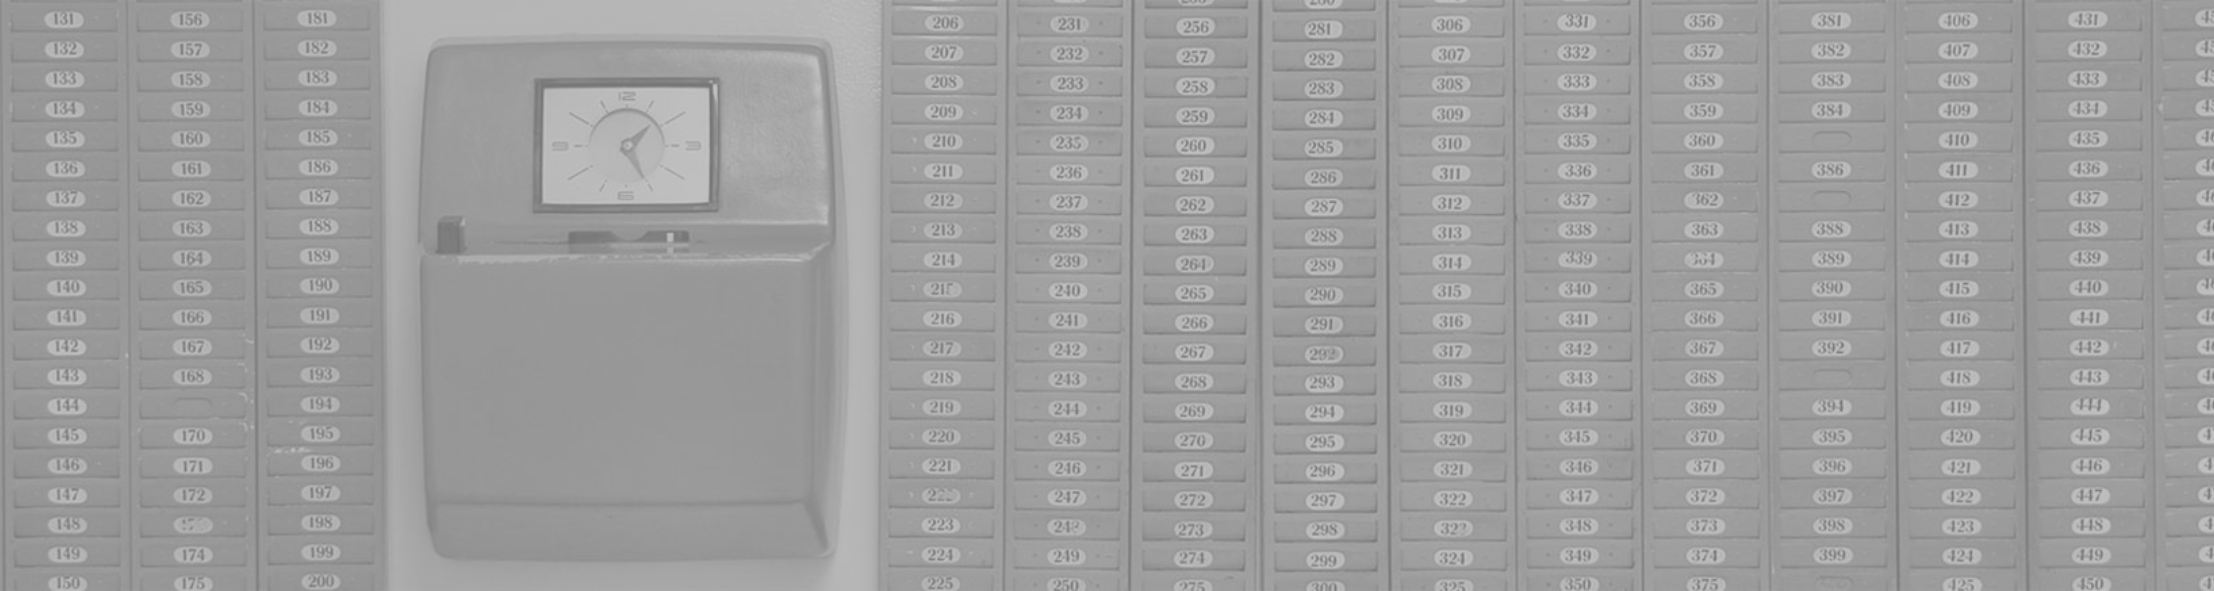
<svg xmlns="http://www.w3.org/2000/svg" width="2214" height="591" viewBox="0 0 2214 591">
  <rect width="100%" height="100%" fill="rgb(255,255,255)"/>
  <image x="0" y="0" width="2214" height="591" href="pic1.png"/>
</svg>
